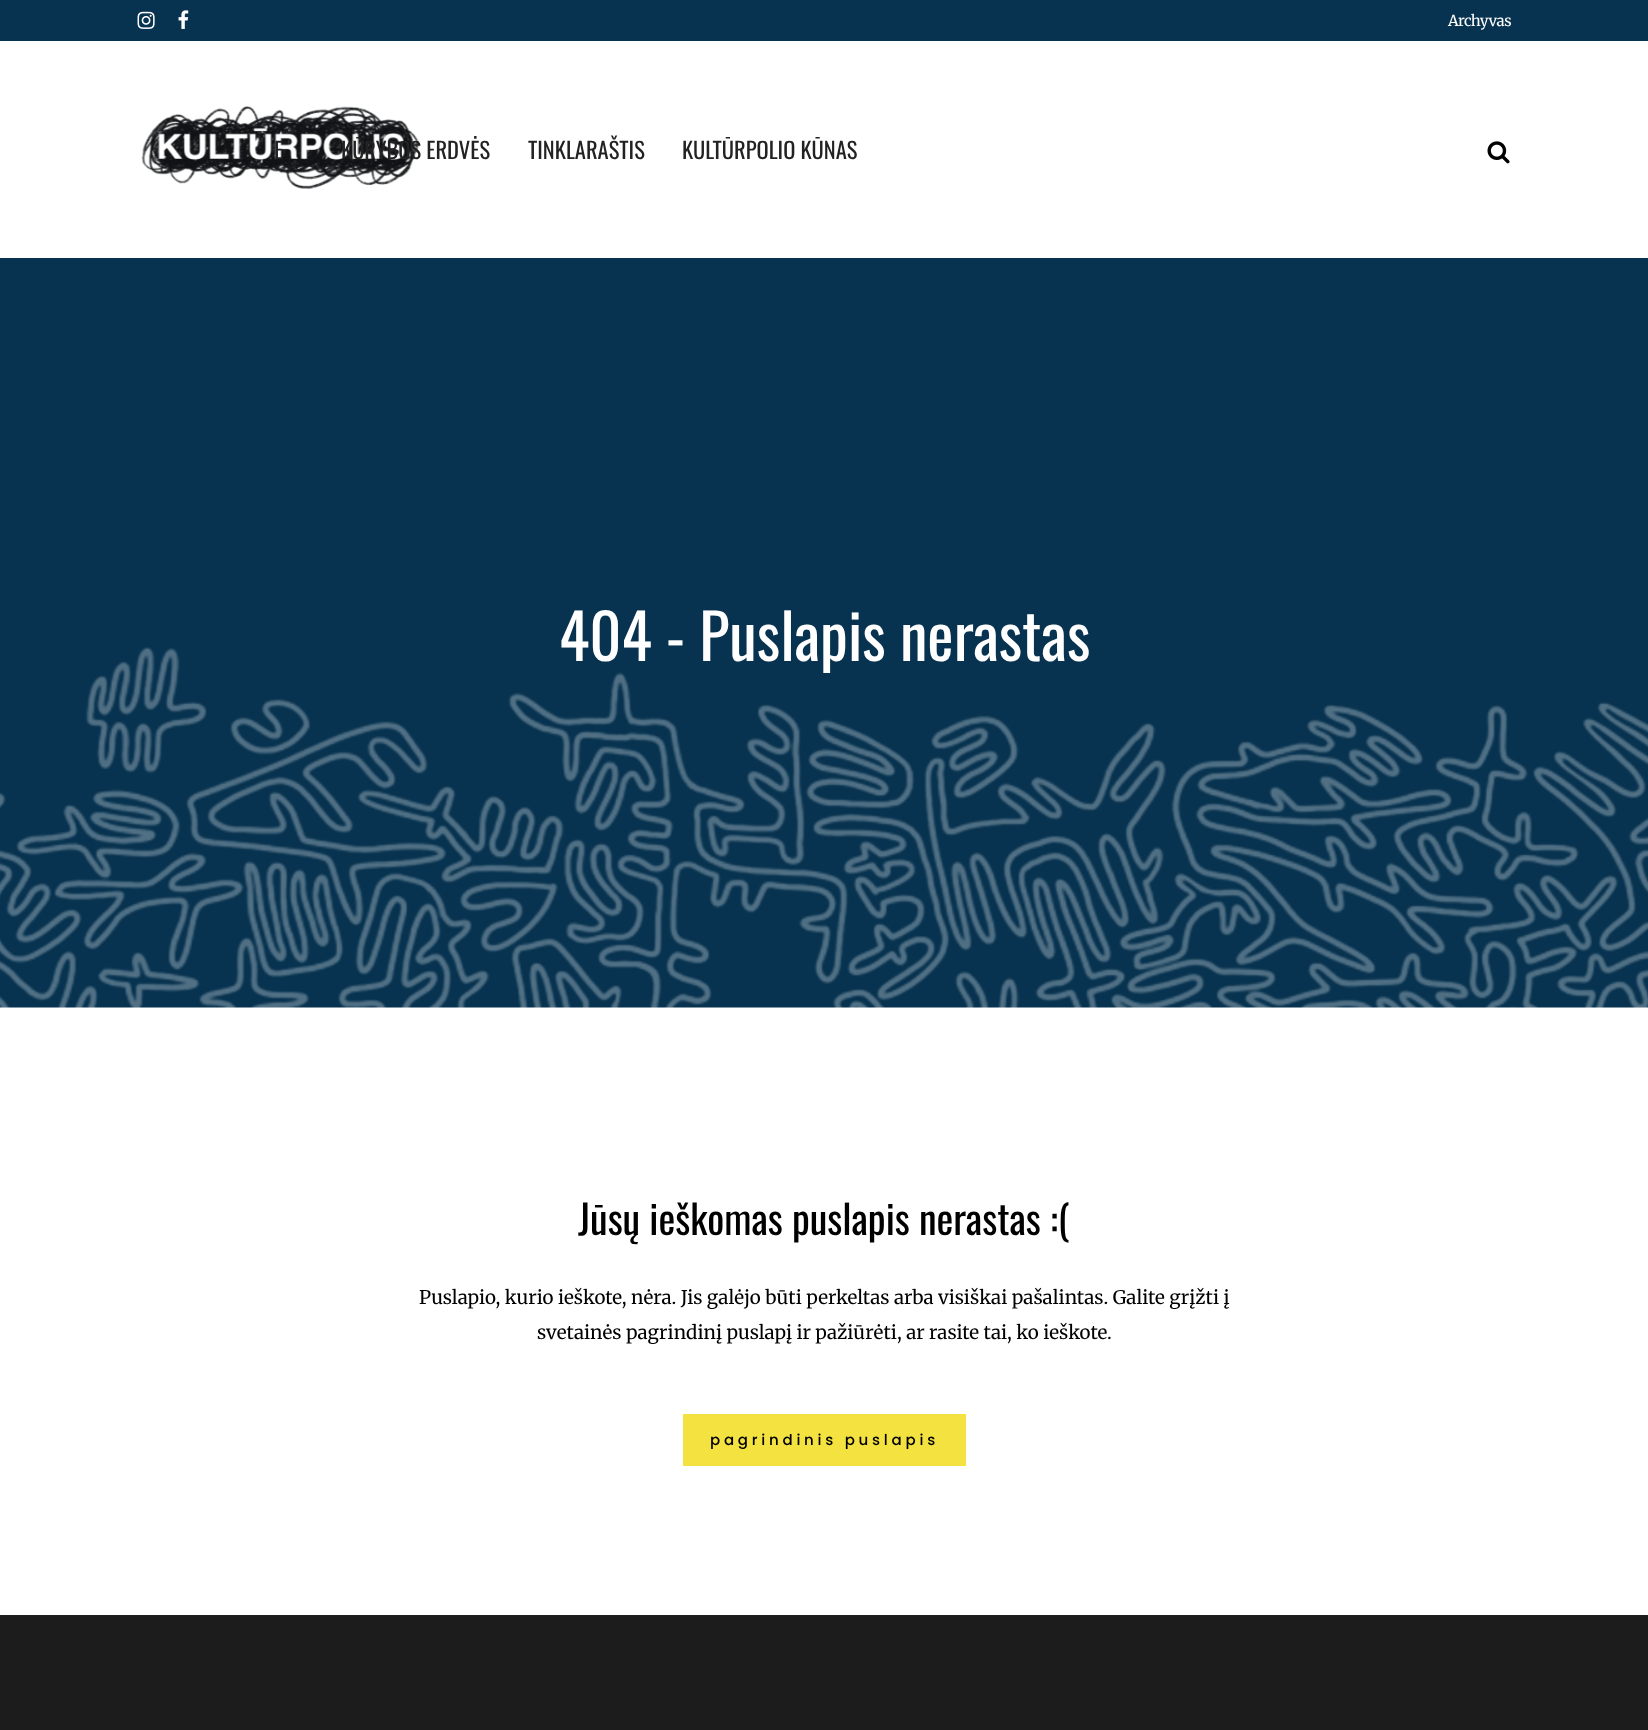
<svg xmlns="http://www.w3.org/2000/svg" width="1648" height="1730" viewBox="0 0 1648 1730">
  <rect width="100%" height="100%" fill="rgb(255,255,255)"/>
  <rect x="0" y="0" width="1648" height="41" fill="rgb(7,51,80)"/>
  <image x="137" y="11" width="18" height="18" href="pic1.png"/>
  <image x="178" y="10" width="11" height="19" href="pic2.png"/>
  <text x="1448" y="26" font-family="Merriweather" font-size="15" letter-spacing="-0.5" fill="rgb(255,255,255)">Archyvas</text>
  <image x="141" y="106" width="280" height="83" href="pic3.png"/>
  <g font-family="Oswald" font-size="22.5" fill="rgb(34,34,34)">
    <text x="274" y="159">E</text>
    <text x="341" y="159">KŪRYBOS ERDVĖS</text>
    <text x="528" y="159">TINKLARAŠTIS</text>
    <text x="682" y="159">KULTŪRPOLIO KŪNAS</text>
  </g>
  <image x="1487" y="141" width="23" height="23" href="pic4.png"/>
  <image x="0" y="258" width="1648" height="750" href="pic5.png"/>
  <text x="559" y="661" font-family="Oswald" font-size="62.5" fill="rgb(255,255,255)">404 - Puslapis nerastas</text>
  <text x="578" y="1235" font-family="Oswald" font-size="40" fill="rgb(0,0,0)">Jūsų ieškomas puslapis nerastas :(</text>
  <g font-family="Merriweather" font-size="18.75" fill="rgb(0,0,0)">
    <text x="419" y="1304">Puslapio, kurio ieškote, nėra. Jis galėjo būti perkeltas arba visiškai pašalintas. Galite grįžti į</text>
    <text x="537" y="1339">svetainės pagrindinį puslapį ir pažiūrėti, ar rasite tai, ko ieškote.</text>
  </g>
  <rect x="683" y="1414" width="283" height="52" fill="rgb(243,226,64)"/>
  <text x="710" y="1445" font-family="Poppins" font-size="15" font-weight="500" letter-spacing="3.75" fill="rgb(0,0,0)">pagrindinis puslapis</text>
  <rect x="0" y="1615" width="1648" height="115" fill="rgb(28,28,28)"/>
</svg>
